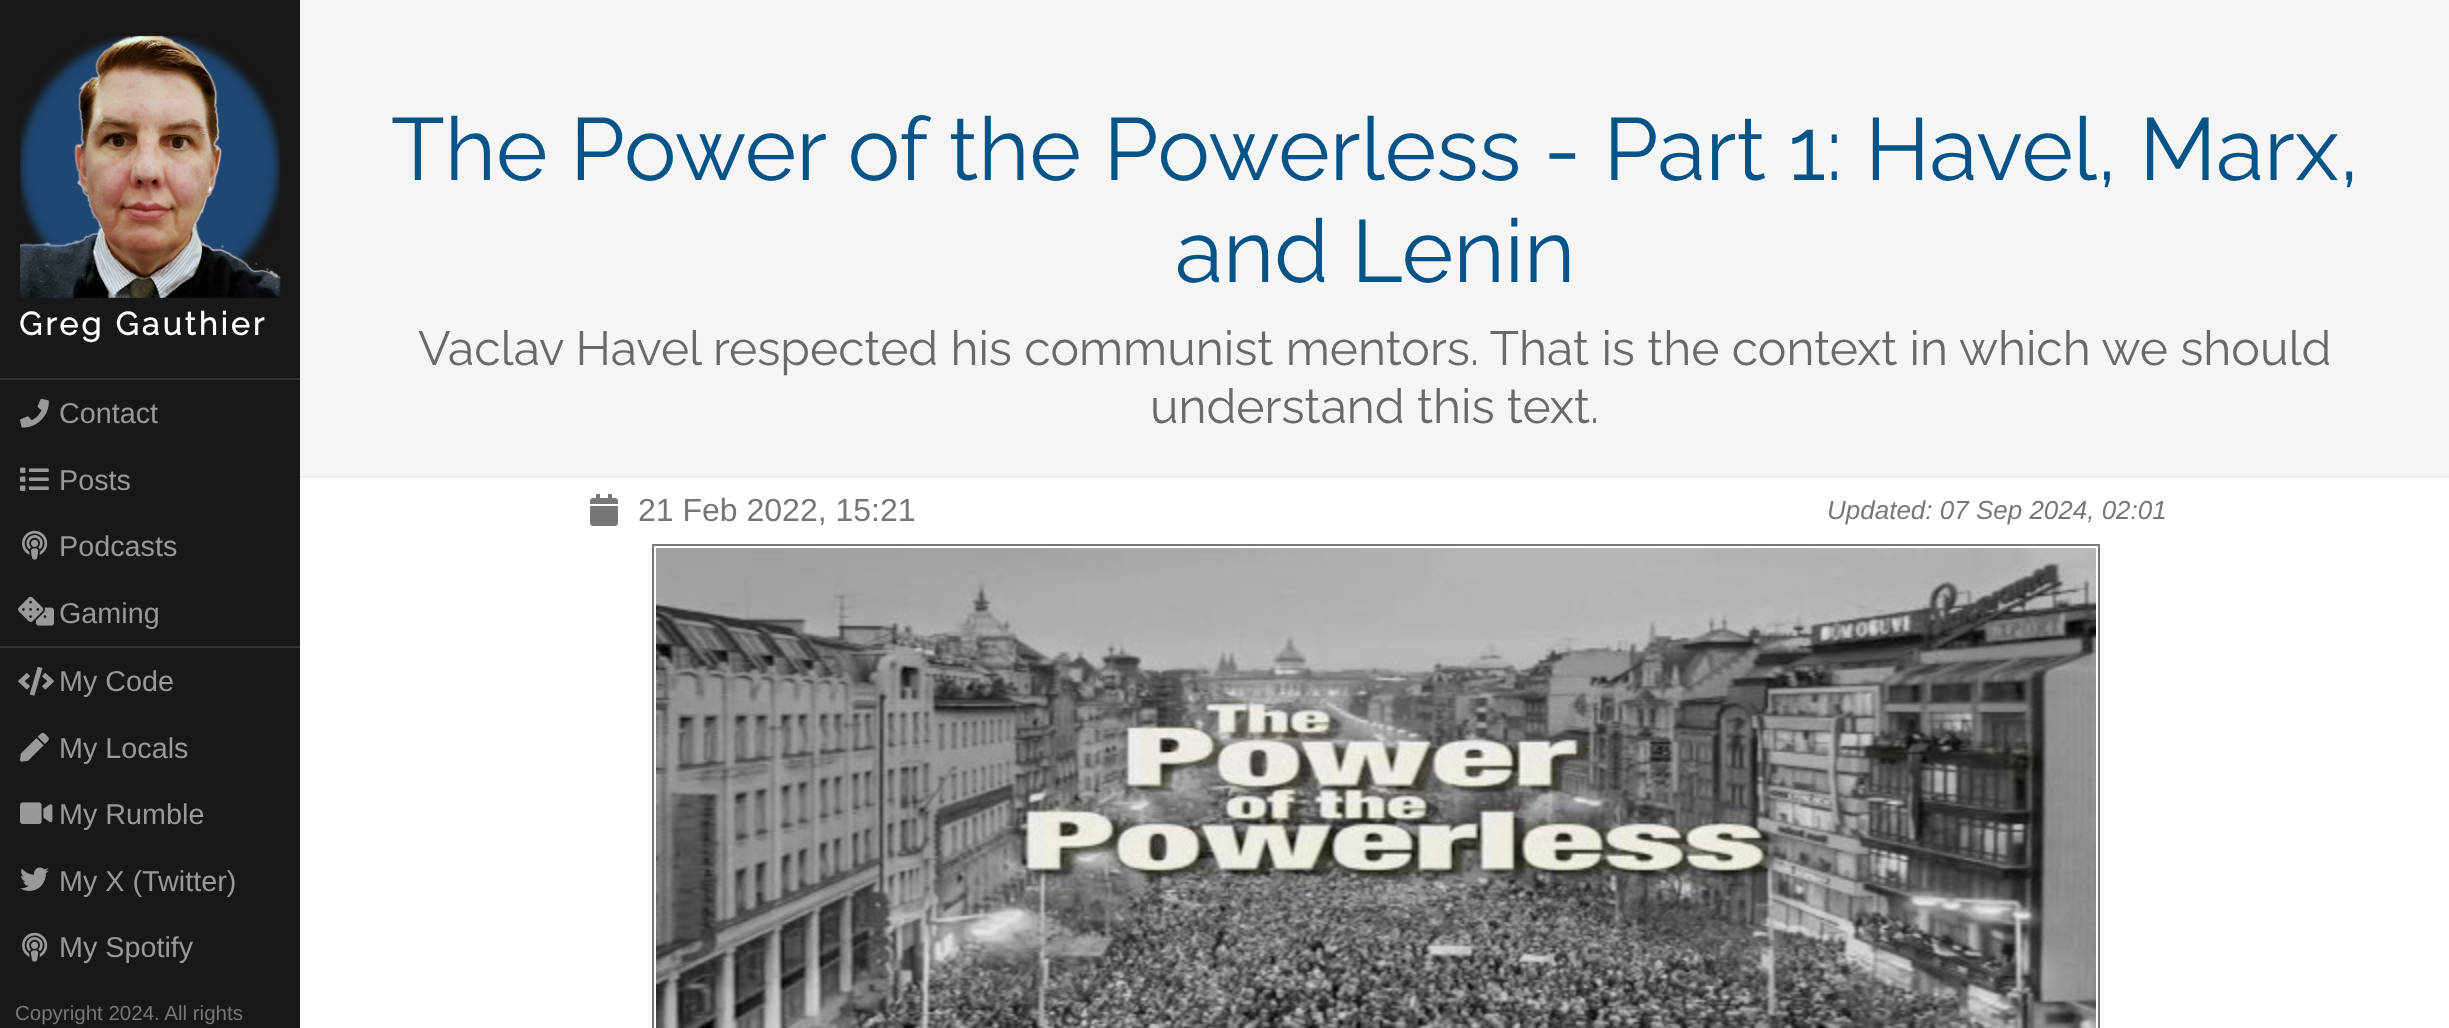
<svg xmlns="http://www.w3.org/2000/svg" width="2449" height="1028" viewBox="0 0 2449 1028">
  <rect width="100%" height="100%" fill="rgb(255,255,255)"/>
  <rect x="300" y="0" width="2149" height="476" fill="rgb(245,245,245)"/>
  <rect x="300" y="476" width="2149" height="2" fill="rgb(238,238,238)"/>
  <g font-family="Raleway" font-size="88" font-weight="100" fill="rgb(6,83,135)">
    <text x="391" y="180">The Power of the Powerless - Part 1: Havel, Marx,</text>
    <text x="1175" y="282">and Lenin</text>
  </g>
  <g font-family="Raleway" font-size="48" font-weight="100" fill="rgb(105,105,105)">
    <text x="418" y="365">Vaclav Havel respected his communist mentors. That is the context in which we should</text>
    <text x="1150" y="423">understand this text.</text>
  </g>
  <rect x="0" y="0" width="300" height="1028" fill="rgb(25,24,24)"/>
  <image x="19" y="35" width="262" height="263" href="pic1.png"/>
  <text x="19" y="335" font-family="Raleway" font-size="32" font-weight="bold" letter-spacing="3.25" fill="rgb(255,255,255)">Greg Gauthier</text>
  <rect x="0" y="378" width="300" height="2" fill="rgb(51,51,51)"/>
  <image x="20" y="398" width="29" height="30" href="pic2.png"/>
  <text x="59" y="423" font-family="Liberation Sans" font-size="28.75" fill="rgb(153,153,153)">Contact</text>
  <image x="20" y="467" width="29" height="24" href="pic3.png"/>
  <text x="59" y="490" font-family="Liberation Sans" font-size="28.75" fill="rgb(153,153,153)">Posts</text>
  <image x="22" y="530" width="26" height="30" href="pic4.png"/>
  <text x="59" y="556" font-family="Liberation Sans" font-size="28.75" fill="rgb(153,153,153)">Podcasts</text>
  <image x="18" y="596" width="36" height="30" href="pic5.png"/>
  <text x="59" y="623" font-family="Liberation Sans" font-size="28.75" fill="rgb(153,153,153)">Gaming</text>
  <rect x="0" y="646" width="300" height="2" fill="rgb(51,51,51)"/>
  <image x="18" y="666" width="36" height="30" href="pic6.png"/>
  <text x="59" y="691" font-family="Liberation Sans" font-size="28.75" fill="rgb(153,153,153)">My Code</text>
  <image x="20" y="732" width="29" height="30" href="pic7.png"/>
  <text x="59" y="758" font-family="Liberation Sans" font-size="28.75" fill="rgb(153,153,153)">My Locals</text>
  <image x="20" y="802" width="33" height="22" href="pic8.png"/>
  <text x="59" y="824" font-family="Liberation Sans" font-size="28.75" fill="rgb(153,153,153)">My Rumble</text>
  <image x="20" y="867" width="29" height="24" href="pic9.png"/>
  <text x="59" y="891" font-family="Liberation Sans" font-size="28.75" fill="rgb(153,153,153)">My X (Twitter)</text>
  <image x="22" y="932" width="26" height="30" href="pic4.png"/>
  <text x="59" y="957" font-family="Liberation Sans" font-size="28.75" fill="rgb(153,153,153)">My Spotify</text>
  <text x="15" y="1020" font-family="Liberation Sans" font-size="20.5" fill="rgb(119,119,119)">Copyright 2024. All rights</text>
  <image x="590" y="494" width="28" height="32" href="pic10.png"/>
  <text x="638" y="521" font-family="Liberation Sans" font-size="32" fill="rgb(119,119,119)">21 Feb 2022, 15:21</text>
  <text x="1827" y="519" font-family="Liberation Sans" font-size="26" font-style="italic" fill="rgb(119,119,119)">Updated: 07 Sep 2024, 02:01</text>
  <rect x="653" y="545" width="1446" height="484" fill="none" stroke="rgb(119,119,119)" stroke-width="2"/>
  <image x="656" y="548" width="1440" height="480" href="pic11.png"/>
</svg>
